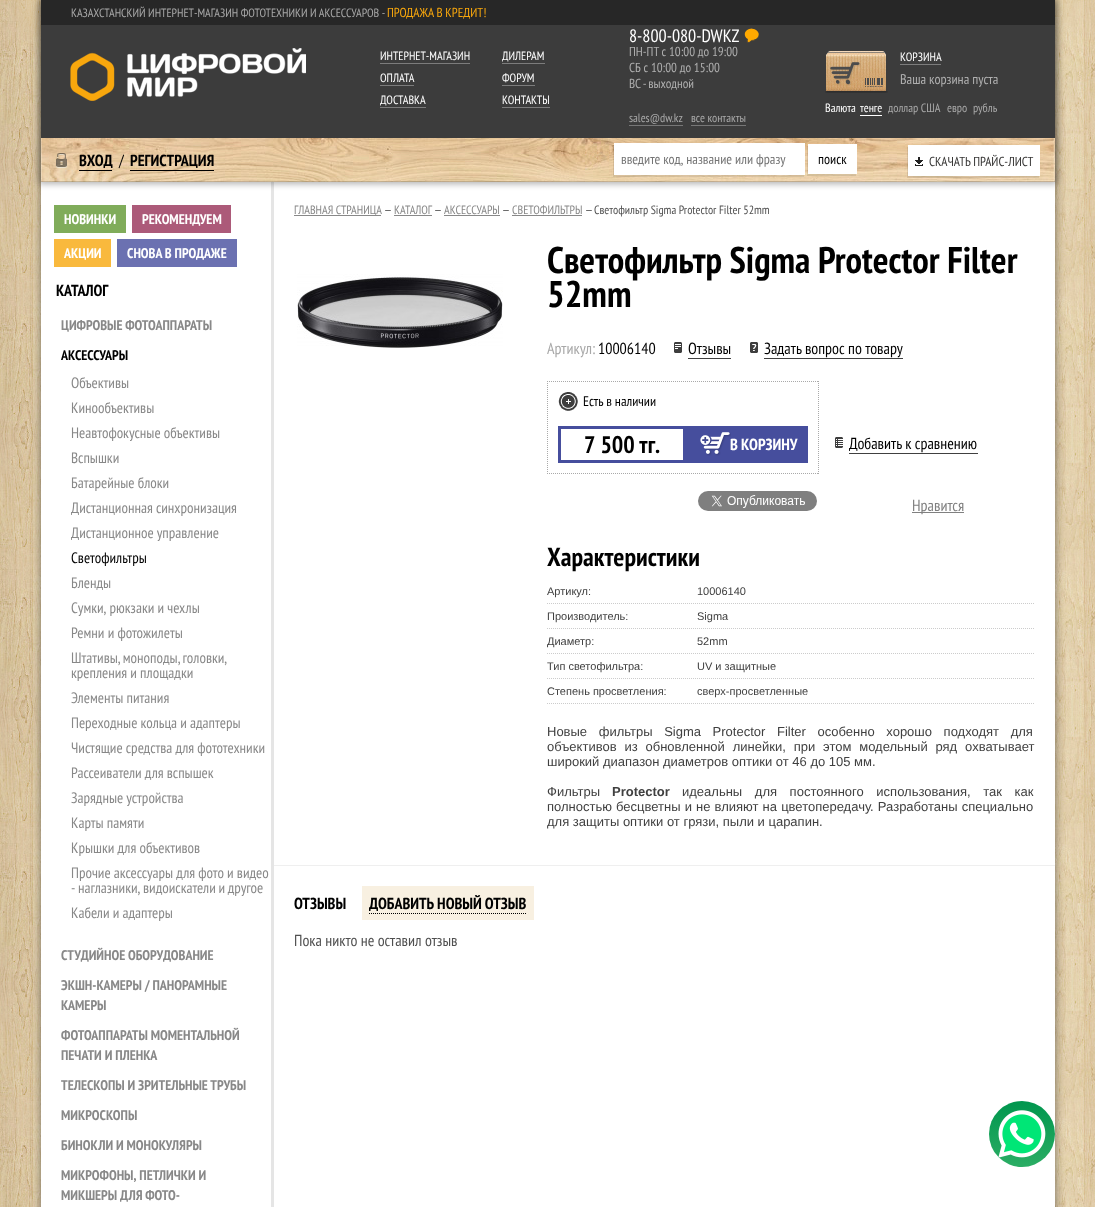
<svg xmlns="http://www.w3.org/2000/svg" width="1095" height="1207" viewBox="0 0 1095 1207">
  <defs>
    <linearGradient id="g1" gradientUnits="userSpaceOnUse" x1="1022" y1="1101" x2="1022" y2="1167"><stop offset="0" stop-color="rgb(0,150,78)"/><stop offset="1" stop-color="rgb(43,173,100)"/></linearGradient>
  </defs>
  <rect width="100%" height="100%" fill="rgb(255,255,255)"/>
  <image x="0" y="0" width="1095" height="1207" href="pic1.png"/>
  <image x="11" y="0" width="1068" height="57" href="pic2.png"/>
  <rect x="41" y="0" width="1014" height="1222" fill="rgba(0,0,0,0.5)" filter="blur(5px)"/>
  <rect x="41" y="182" width="1014" height="1025" fill="rgb(255,255,255)"/>
  <rect x="271" y="182" width="3" height="1025" fill="rgb(229,229,229)"/>
  <rect x="39" y="-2" width="1018" height="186" fill="rgba(0,0,0,0.3)" filter="blur(3px)"/>
  <rect x="41" y="0" width="1014" height="25" fill="rgb(39,39,39)"/>
  <text x="71" y="17" font-family="PT Sans Narrow" font-size="12" fill="rgb(168,168,168)">КАЗАХСТАНСКИЙ ИНТЕРНЕТ-МАГАЗИН ФОТОТЕХНИКИ И АКСЕССУАРОВ -</text>
  <text x="387" y="17" font-family="PT Sans Narrow" font-size="13" fill="rgb(248,167,13)">ПРОДАЖА В КРЕДИТ!</text>
  <rect x="41" y="25" width="1014" height="113" fill="rgb(60,60,60)"/>
  <image x="70" y="48" width="236" height="53" href="pic3.png"/>
  <text x="380" y="60" font-family="PT Sans Narrow" font-size="12" fill="rgb(255,255,255)">ИНТЕРНЕТ-МАГАЗИН</text>
  <rect x="380" y="63" width="90" height="1" fill="rgb(124,124,124)"/>
  <text x="502" y="60" font-family="PT Sans Narrow" font-size="12" fill="rgb(255,255,255)">ДИЛЕРАМ</text>
  <rect x="502" y="63" width="43" height="1" fill="rgb(124,124,124)"/>
  <text x="380" y="82" font-family="PT Sans Narrow" font-size="12" fill="rgb(255,255,255)">ОПЛАТА</text>
  <rect x="380" y="85" width="34" height="1" fill="rgb(124,124,124)"/>
  <text x="502" y="82" font-family="PT Sans Narrow" font-size="12" fill="rgb(255,255,255)">ФОРУМ</text>
  <rect x="502" y="85" width="33" height="1" fill="rgb(124,124,124)"/>
  <text x="380" y="104" font-family="PT Sans Narrow" font-size="12" fill="rgb(255,255,255)">ДОСТАВКА</text>
  <rect x="380" y="107" width="46" height="1" fill="rgb(124,124,124)"/>
  <text x="502" y="104" font-family="PT Sans Narrow" font-size="12" fill="rgb(255,255,255)">КОНТАКТЫ</text>
  <rect x="502" y="107" width="48" height="1" fill="rgb(124,124,124)"/>
  <text x="629" y="42" font-family="PT Sans Narrow" font-size="18" fill="rgb(255,255,255)">8-800-080-DWKZ</text>
  <image x="744" y="28" width="15" height="15" href="pic4.png"/>
  <g font-family="PT Sans Narrow" font-size="13" fill="rgb(176,176,176)">
    <text>
      <tspan x="629" y="56">ПН-ПТ с 10:00 до 19:00</tspan>
      <tspan x="629" y="72">СБ с 10:00 до 15:00</tspan>
      <tspan x="629" y="88" word-spacing="-1">ВC - выходной</tspan>
    </text>
  </g>
  <text x="629" y="122" font-family="PT Sans Narrow" font-size="12" fill="rgb(168,168,168)">sales@dw.kz</text>
  <rect x="629" y="125" width="54" height="1" fill="rgb(119,119,119)"/>
  <text x="691" y="122" font-family="PT Sans Narrow" font-size="12" fill="rgb(168,168,168)">все контакты</text>
  <rect x="691" y="125" width="55" height="1" fill="rgb(119,119,119)"/>
  <image x="825" y="51" width="63" height="42" href="pic5.png"/>
  <text x="900" y="61" font-family="PT Sans Narrow" font-size="12" fill="rgb(255,255,255)">КОРЗИНА</text>
  <rect x="900" y="64" width="41" height="1" fill="rgb(124,124,124)"/>
  <text x="900" y="84" font-family="PT Sans Narrow" font-size="14" fill="rgb(176,176,176)">Ваша корзина пуста</text>
  <g font-family="PT Sans Narrow" font-size="12" fill="rgb(255,255,255)">
    <text x="825" y="112">Валюта</text>
    <text x="860" y="112">тенге</text>
  </g>
  <rect x="860" y="115" width="22" height="1" fill="rgb(255,255,255)"/>
  <g font-family="PT Sans Narrow" font-size="12" fill="rgb(168,168,168)">
    <text x="888" y="112">доллар США</text>
    <text x="947" y="112">евро</text>
    <text x="973" y="112">рубль</text>
  </g>
  <image x="41" y="138" width="1014" height="44" href="pic6.png"/>
  <image x="56" y="153" width="11" height="15" href="pic7.png"/>
  <text x="79" y="166" font-family="PT Sans Narrow" font-size="16" font-weight="bold" fill="rgb(0,0,0)">ВХОД</text>
  <rect x="79" y="170" width="33" height="1" fill="rgb(0,0,0)"/>
  <text x="119" y="166" font-family="PT Sans Narrow" font-size="16" fill="rgb(0,0,0)">/</text>
  <text x="130" y="166" font-family="PT Sans Narrow" font-size="16" font-weight="bold" fill="rgb(0,0,0)">РЕГИСТРАЦИЯ</text>
  <rect x="130" y="170" width="84" height="1" fill="rgb(0,0,0)"/>
  <path d="M613 145V177H804V175H614V145Z" fill="rgba(0,0,0,0.09)"/>
  <rect x="614" y="143" width="191" height="32" fill="rgb(255,255,255)"/>
  <text x="621" y="164" font-family="PT Sans Narrow" font-size="14" fill="rgb(117,117,117)">введите код, название или фразу</text>
  <path d="M807 146V176H856V174H808V146Z" fill="rgba(0,0,0,0.09)"/>
  <rect x="808" y="144" width="49" height="30" fill="rgb(255,255,255)"/>
  <text x="818" y="164" font-family="PT Sans Narrow" font-size="14" fill="rgb(0,0,0)">поиск</text>
  <path d="M907 147V178H1039V176H908V147Z" fill="rgba(0,0,0,0.09)"/>
  <rect x="908" y="145" width="132" height="31" fill="rgb(255,255,255)"/>
  <image x="915" y="157" width="8" height="9" href="pic8.png"/>
  <text x="929" y="166" font-family="PT Sans Narrow" font-size="13" fill="rgb(54,53,52)">СКАЧАТЬ ПРАЙС-ЛИСТ</text>
  <rect x="54" y="205" width="72" height="28" fill="rgb(128,172,90)"/>
  <text x="64" y="224" font-family="PT Sans Narrow" font-size="14" font-weight="bold" fill="rgb(255,255,255)">НОВИНКИ</text>
  <rect x="132" y="205" width="99" height="28" fill="rgb(172,90,121)"/>
  <text x="142" y="224" font-family="PT Sans Narrow" font-size="14" font-weight="bold" fill="rgb(255,255,255)">РЕКОМЕНДУЕМ</text>
  <rect x="54" y="239" width="57" height="28" fill="rgb(249,185,61)"/>
  <text x="64" y="258" font-family="PT Sans Narrow" font-size="14" font-weight="bold" fill="rgb(255,255,255)">АКЦИИ</text>
  <rect x="117" y="239" width="120" height="28" fill="rgb(107,113,177)"/>
  <text x="127" y="258" font-family="PT Sans Narrow" font-size="14" font-weight="bold" fill="rgb(255,255,255)">СНОВА В ПРОДАЖЕ</text>
  <text x="56" y="296" font-family="PT Sans Narrow" font-size="16" font-weight="bold" fill="rgb(0,0,0)">КАТАЛОГ</text>
  <text x="61" y="330" font-family="PT Sans Narrow" font-size="14" font-weight="bold" fill="rgb(136,136,136)">ЦИФРОВЫЕ ФОТОАППАРАТЫ</text>
  <text x="61" y="360" font-family="PT Sans Narrow" font-size="14" font-weight="bold" fill="rgb(0,0,0)">АКСЕССУАРЫ</text>
  <g font-family="PT Sans Narrow" font-size="15" fill="rgb(136,136,136)">
    <text>
      <tspan x="71" y="388">Объективы</tspan>
      <tspan x="71" y="413">Кинообъективы</tspan>
      <tspan x="71" y="438">Неавтофокусные объективы</tspan>
      <tspan x="71" y="463">Вспышки</tspan>
      <tspan x="71" y="488">Батарейные блоки</tspan>
      <tspan x="71" y="513">Дистанционная синхронизация</tspan>
      <tspan x="71" y="538">Дистанционное управление</tspan>
    </text>
  </g>
  <text x="71" y="563" font-family="PT Sans Narrow" font-size="15" fill="rgb(0,0,0)">Светофильтры</text>
  <g font-family="PT Sans Narrow" font-size="15" fill="rgb(136,136,136)">
    <text>
      <tspan x="71" y="588">Бленды</tspan>
      <tspan x="71" y="613">Сумки, рюкзаки и чехлы</tspan>
      <tspan x="71" y="638">Ремни и фотожилеты</tspan>
      <tspan x="71" y="663" word-spacing="-1">Штативы, моноподы, головки,</tspan>
      <tspan x="71" y="678">крепления и площадки</tspan>
      <tspan x="71" y="703">Элементы питания</tspan>
      <tspan x="71" y="728">Переходные кольца и адаптеры</tspan>
      <tspan x="71" y="753">Чистящие средства для фототехники</tspan>
      <tspan x="71" y="778">Рассеиватели для вспышек</tspan>
      <tspan x="71" y="803">Зарядные устройства</tspan>
      <tspan x="71" y="828">Карты памяти</tspan>
      <tspan x="71" y="853">Крышки для объективов</tspan>
      <tspan x="71" y="878">Прочие аксессуары для фото и видео</tspan>
      <tspan x="71" y="893" word-spacing="-0.5">- наглазники, видоискатели и другое</tspan>
      <tspan x="71" y="918">Кабели и адаптеры</tspan>
    </text>
  </g>
  <g font-family="PT Sans Narrow" font-size="14" font-weight="bold" fill="rgb(136,136,136)">
    <text x="61" y="960">СТУДИЙНОЕ ОБОРУДОВАНИЕ</text>
    <text>
      <tspan x="61" y="990">ЭКШН-КАМЕРЫ / ПАНОРАМНЫЕ</tspan>
      <tspan x="61" y="1010">КАМЕРЫ</tspan>
    </text>
    <text>
      <tspan x="61" y="1040">ФОТОАППАРАТЫ МОМЕНТАЛЬНОЙ</tspan>
      <tspan x="61" y="1060">ПЕЧАТИ И ПЛЕНКА</tspan>
    </text>
    <text x="61" y="1090">ТЕЛЕСКОПЫ И ЗРИТЕЛЬНЫЕ ТРУБЫ</text>
    <text x="61" y="1120">МИКРОСКОПЫ</text>
    <text x="61" y="1150">БИНОКЛИ И МОНОКУЛЯРЫ</text>
    <text>
      <tspan x="61" y="1180">МИКРОФОНЫ, ПЕТЛИЧКИ И</tspan>
      <tspan x="61" y="1200">МИКШЕРЫ ДЛЯ ФОТО-</tspan>
    </text>
  </g>
  <rect x="294" y="215" width="87" height="1" fill="rgb(136,136,136)"/>
  <text x="294" y="214" font-family="PT Sans Narrow" font-size="12" fill="rgb(136,136,136)">ГЛАВНАЯ СТРАНИЦА</text>
  <text x="384" y="214" font-family="PT Sans Narrow" font-size="12" fill="rgb(80,80,80)">—</text>
  <text x="394" y="214" font-family="PT Sans Narrow" font-size="12" fill="rgb(136,136,136)">КАТАЛОГ</text>
  <rect x="394" y="215" width="38" height="1" fill="rgb(136,136,136)"/>
  <text x="434" y="214" font-family="PT Sans Narrow" font-size="12" fill="rgb(80,80,80)">—</text>
  <text x="444" y="214" font-family="PT Sans Narrow" font-size="12" fill="rgb(136,136,136)">АКСЕССУАРЫ</text>
  <rect x="444" y="215" width="56" height="1" fill="rgb(136,136,136)"/>
  <text x="502" y="214" font-family="PT Sans Narrow" font-size="12" fill="rgb(80,80,80)">—</text>
  <text x="512" y="214" font-family="PT Sans Narrow" font-size="12" fill="rgb(136,136,136)">СВЕТОФИЛЬТРЫ</text>
  <rect x="512" y="215" width="70" height="1" fill="rgb(136,136,136)"/>
  <g font-family="PT Sans Narrow" font-size="12" fill="rgb(80,80,80)">
    <text x="585" y="214">—</text>
    <text x="594" y="214">Светофильтр Sigma Protector Filter 52mm</text>
  </g>
  <image x="297" y="274" width="206" height="74" href="pic9.png"/>
  <g font-family="PT Sans Narrow" font-size="37" font-weight="bold" fill="rgb(0,0,0)">
    <text>
      <tspan x="547" y="273">Светофильтр Sigma Protector Filter</tspan>
      <tspan x="547" y="307">52mm</tspan>
    </text>
  </g>
  <text x="547" y="354" font-family="PT Sans Narrow" font-size="16" fill="rgb(168,168,168)">Артикул:</text>
  <text x="598" y="354" font-family="PT Sans Narrow" font-size="16" fill="rgb(0,0,0)">10006140</text>
  <image x="674" y="342" width="8" height="11" href="pic10.png"/>
  <text x="688" y="354" font-family="PT Sans Narrow" font-size="16" fill="rgb(0,0,0)">Отзывы</text>
  <rect x="688" y="358" width="43" height="1" fill="rgb(64,64,64)"/>
  <image x="750" y="342" width="8" height="11" href="pic11.png"/>
  <text x="764" y="354" font-family="PT Sans Narrow" font-size="16" fill="rgb(0,0,0)">Задать вопрос по товару</text>
  <rect x="764" y="358" width="139" height="1" fill="rgb(64,64,64)"/>
  <path d="M547 381.5H819" fill="none" stroke="rgb(169,169,169)" stroke-dasharray="1 1"/>
  <path d="M818.5 381V474" fill="none" stroke="rgb(169,169,169)" stroke-dasharray="1 1"/>
  <path d="M547 473.5H819" fill="none" stroke="rgb(169,169,169)" stroke-dasharray="1 1"/>
  <path d="M547.5 381V474" fill="none" stroke="rgb(169,169,169)" stroke-dasharray="1 1"/>
  <image x="558" y="392" width="20" height="19" href="pic12.png"/>
  <text x="583" y="406" font-family="PT Sans Narrow" font-size="14" fill="rgb(0,0,0)">Есть в наличии</text>
  <rect x="558" y="426" width="250" height="37" fill="rgb(70,78,157)"/>
  <rect x="561" y="429" width="122" height="31" fill="rgb(255,255,255)"/>
  <text x="584" y="453" font-family="PT Sans Narrow" font-size="24" font-weight="bold" fill="rgb(0,0,0)">7 500 тг.</text>
  <image x="700" y="432" width="31" height="24" href="pic13.png"/>
  <text x="730" y="450" font-family="PT Sans Narrow" font-size="16" font-weight="bold" fill="rgb(255,255,255)">В КОРЗИНУ</text>
  <image x="835" y="437" width="8" height="11" href="pic14.png"/>
  <text x="849" y="449" font-family="PT Sans Narrow" font-size="16" fill="rgb(0,0,0)">Добавить к сравнению</text>
  <rect x="849" y="453" width="129" height="1" fill="rgb(64,64,64)"/>
  <image x="698" y="491" width="119" height="20" href="pic15.png"/>
  <rect x="912" y="512" width="52" height="1" fill="rgb(128,128,128)"/>
  <text x="912" y="511" font-family="PT Sans Narrow" font-size="16" fill="rgb(128,128,128)">Нравится</text>
  <text x="547" y="566" font-family="PT Sans Narrow" font-size="26" font-weight="bold" fill="rgb(0,0,0)">Характеристики</text>
  <path d="M547 603.5H1034" fill="none" stroke="rgb(204,204,204)" stroke-dasharray="1 1"/>
  <g font-family="Liberation Sans" font-size="11" fill="rgb(64,64,64)">
    <text x="547" y="595">Артикул:</text>
    <text x="697" y="595">10006140</text>
  </g>
  <path d="M547 628.5H1034" fill="none" stroke="rgb(204,204,204)" stroke-dasharray="1 1"/>
  <g font-family="Liberation Sans" font-size="11" fill="rgb(64,64,64)">
    <text x="547" y="620">Производитель:</text>
    <text x="697" y="620">Sigma</text>
  </g>
  <path d="M547 653.5H1034" fill="none" stroke="rgb(204,204,204)" stroke-dasharray="1 1"/>
  <g font-family="Liberation Sans" font-size="11" fill="rgb(64,64,64)">
    <text x="547" y="645">Диаметр:</text>
    <text x="697" y="645">52mm</text>
  </g>
  <path d="M547 678.5H1034" fill="none" stroke="rgb(204,204,204)" stroke-dasharray="1 1"/>
  <g font-family="Liberation Sans" font-size="11" fill="rgb(64,64,64)">
    <text x="547" y="670">Тип светофильтра:</text>
    <text x="697" y="670">UV и защитные</text>
  </g>
  <path d="M547 703.5H1034" fill="none" stroke="rgb(204,204,204)" stroke-dasharray="1 1"/>
  <g font-family="Liberation Sans" font-size="11" fill="rgb(64,64,64)">
    <text x="547" y="695">Степень просветления:</text>
    <text x="697" y="695">сверх-просветленные</text>
  </g>
  <g font-family="Liberation Sans" font-size="13" fill="rgb(64,64,64)">
    <text>
      <tspan x="547" y="736" word-spacing="8">Новые фильтры Sigma Protector Filter особенно хорошо подходят для</tspan>
      <tspan x="547" y="751" word-spacing="4.25">объективов из обновленной линейки, при этом модельный ряд охватывает</tspan>
      <tspan x="547" y="766">широкий диапазон диаметров оптики от 46 до 105 мм.</tspan>
    </text>
    <text x="547" y="796">Фильтры</text>
  </g>
  <text x="612" y="796" font-family="Liberation Sans" font-size="13" font-weight="bold" fill="rgb(64,64,64)">Protector</text>
  <g font-family="Liberation Sans" font-size="13" fill="rgb(64,64,64)">
    <text x="682" y="796" word-spacing="9">идеальны для постоянного использования, так как</text>
    <text>
      <tspan x="547" y="811" word-spacing="0.5">полностью бесцветны и не влияют на цветопередачу. Разработаны специально</tspan>
      <tspan x="547" y="826">для защиты оптики от грязи, пыли и царапин.</tspan>
    </text>
  </g>
  <rect x="274" y="865" width="781" height="1" fill="rgb(239,239,239)"/>
  <text x="294" y="909" font-family="PT Sans Narrow" font-size="16" font-weight="bold" fill="rgb(0,0,0)">ОТЗЫВЫ</text>
  <rect x="362" y="886" width="172" height="34" fill="rgb(248,240,225)"/>
  <text x="369" y="909" font-family="PT Sans Narrow" font-size="16" font-weight="bold" fill="rgb(0,0,0)">ДОБАВИТЬ НОВЫЙ ОТЗЫВ</text>
  <path d="M369 913.5H527" fill="none" stroke="rgb(0,0,0)" stroke-dasharray="1 1"/>
  <text x="294" y="946" font-family="PT Sans Narrow" font-size="16" fill="rgb(80,80,80)">Пока никто не оставил отзыв</text>
  <circle cx="1022" cy="1134" r="33" fill="url(#g1)"/>
  <image x="998" y="1110" width="48" height="48" href="pic16.png"/>
</svg>
